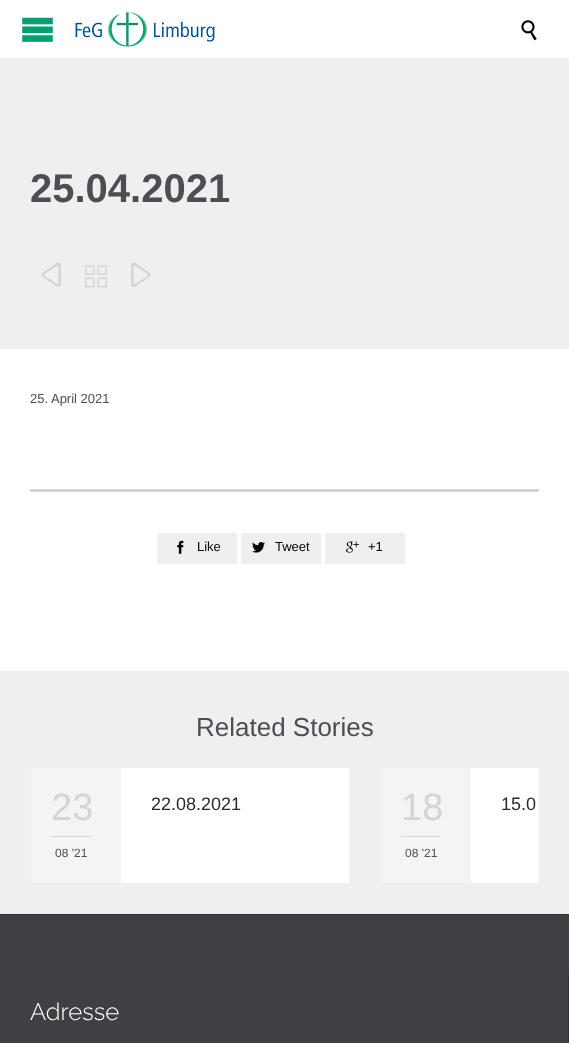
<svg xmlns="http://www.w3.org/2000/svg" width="569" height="1043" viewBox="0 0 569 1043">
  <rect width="100%" height="100%" fill="rgb(239,239,239)"/>
  <rect x="0" y="0" width="569" height="58" fill="rgb(255,255,255)"/>
  <image x="22" y="17" width="31" height="25" href="pic1.png"/>
  <image x="75" y="12" width="140" height="35" href="pic2.png"/>
  <image x="521" y="20" width="16" height="21" href="pic3.png"/>
  <text x="30" y="202" font-family="Liberation Sans" font-size="40" font-weight="bold" fill="rgb(77,78,83)">25.04.2021</text>
  <image x="41" y="262" width="20" height="25" href="pic4.png"/>
  <image x="85" y="265" width="22" height="23" href="pic5.png"/>
  <image x="131" y="262" width="20" height="25" href="pic6.png"/>
  <rect x="0" y="349" width="569" height="322" fill="rgb(255,255,255)"/>
  <text x="30" y="403" font-family="Liberation Sans" font-size="13" fill="rgb(77,78,83)">25. April 2021</text>
  <rect x="30" y="489" width="509" height="3" fill="rgb(212,212,212)"/>
  <rect x="157" y="533" width="80" height="31" rx="1" fill="rgb(239,239,239)"/>
  <image x="177" y="540" width="7" height="14" href="pic7.png"/>
  <text x="197" y="551" font-family="Liberation Sans" font-size="13" fill="rgb(0,0,0)">Like</text>
  <rect x="241" y="533" width="80" height="31" rx="1" fill="rgb(239,239,239)"/>
  <image x="252" y="542" width="13" height="11" href="pic8.png"/>
  <text x="275" y="551" font-family="Liberation Sans" font-size="13" fill="rgb(0,0,0)">Tweet</text>
  <rect x="325" y="533" width="80" height="31" rx="1" fill="rgb(239,239,239)"/>
  <image x="346" y="541" width="13" height="12" href="pic9.png"/>
  <text x="368" y="551" font-family="Liberation Sans" font-size="13" fill="rgb(0,0,0)">+1</text>
  <text x="196" y="736" font-family="Liberation Sans" font-size="26" fill="rgb(77,78,83)">Related Stories</text>
  <rect x="121" y="768" width="228" height="115" fill="rgb(255,255,255)"/>
  <rect x="31" y="768" width="90" height="115" fill="rgb(244,243,246)"/>
  <rect x="51" y="836" width="40" height="1" fill="rgb(212,212,212)"/>
  <text x="51" y="820" font-family="Liberation Sans" font-size="38" fill="rgb(212,212,212)">23</text>
  <text x="55" y="857" font-family="Liberation Sans" font-size="12" fill="rgb(77,78,83)">08 '21</text>
  <text x="151" y="810" font-family="Liberation Sans" font-size="18" fill="rgb(43,43,43)">22.08.2021</text>
  <rect x="471" y="768" width="68" height="115" fill="rgb(255,255,255)"/>
  <rect x="381" y="768" width="90" height="115" fill="rgb(244,243,246)"/>
  <rect x="401" y="836" width="40" height="1" fill="rgb(212,212,212)"/>
  <text x="401" y="820" font-family="Liberation Sans" font-size="38" fill="rgb(212,212,212)">18</text>
  <text x="405" y="857" font-family="Liberation Sans" font-size="12" fill="rgb(77,78,83)">08 '21</text>
  <text x="501" y="810" font-family="Liberation Sans" font-size="18" fill="rgb(43,43,43)">15.0</text>
  <rect x="0" y="915" width="569" height="128" fill="rgb(62,64,67)"/>
  <rect x="0" y="914" width="569" height="1" fill="rgb(50,51,54)"/>
  <rect x="568" y="975" width="1" height="68" fill="rgb(50,51,54)"/>
  <text x="30" y="1020" font-family="Raleway" font-size="24" font-weight="300" fill="rgb(255,255,255)">Adresse</text>
</svg>
